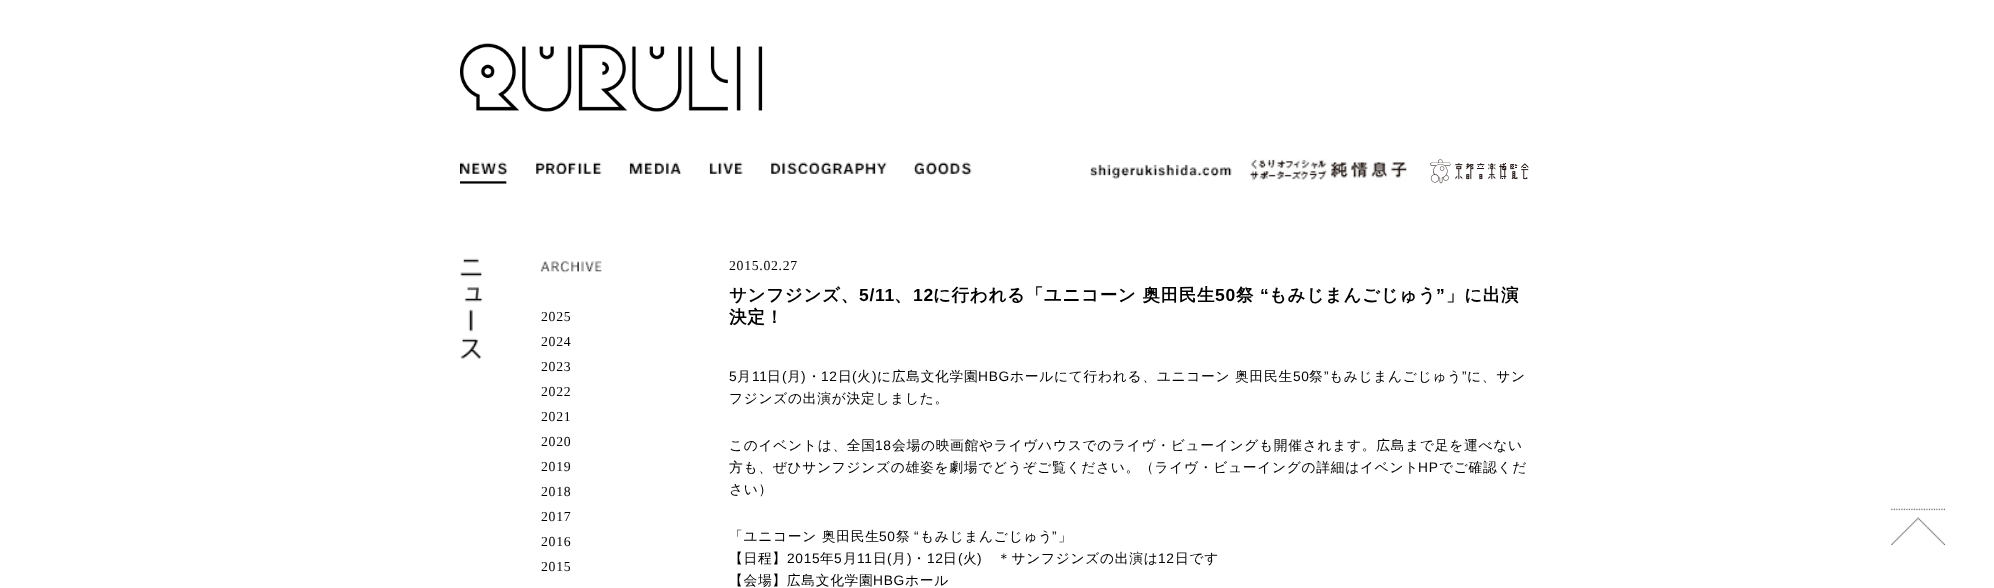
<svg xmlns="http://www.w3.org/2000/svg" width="1994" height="588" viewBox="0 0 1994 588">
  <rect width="100%" height="100%" fill="rgb(255,255,255)"/>
  <image x="460" y="43" width="303" height="69" href="pic1.png"/>
  <image x="460" y="162" width="48" height="22" href="pic2.png"/>
  <image x="536" y="162" width="66" height="12" href="pic3.png"/>
  <image x="629" y="162" width="53" height="12" href="pic4.png"/>
  <image x="709" y="162" width="34" height="12" href="pic5.png"/>
  <image x="771" y="162" width="116" height="12" href="pic6.png"/>
  <image x="913" y="162" width="59" height="14" href="pic7.png"/>
  <image x="1090" y="164" width="142" height="15" href="pic8.png"/>
  <image x="1249" y="159" width="158" height="22" href="pic9.png"/>
  <image x="1430" y="159" width="99" height="25" href="pic10.png"/>
  <image x="460" y="258" width="23" height="101" href="pic11.png"/>
  <image x="540" y="261" width="62" height="12" href="pic12.png"/>
  <g font-family="Liberation Serif" font-size="13.75" letter-spacing="0.7" fill="rgb(0,0,0)">
    <text>
      <tspan x="541" y="321">2025</tspan>
      <tspan x="541" y="346">2024</tspan>
      <tspan x="541" y="371">2023</tspan>
      <tspan x="541" y="396">2022</tspan>
      <tspan x="541" y="421">2021</tspan>
      <tspan x="541" y="446">2020</tspan>
      <tspan x="541" y="471">2019</tspan>
      <tspan x="541" y="496">2018</tspan>
      <tspan x="541" y="521">2017</tspan>
      <tspan x="541" y="546">2016</tspan>
      <tspan x="541" y="571">2015</tspan>
    </text>
    <text x="729" y="270">2015.02.27</text>
  </g>
  <text x="729" y="301" font-family="WenQuanYi Zen Hei" font-size="17.5" font-weight="bold" letter-spacing="0.7" fill="rgb(0,0,0)">サンフジンズ、</text>
  <g font-family="Liberation Sans" font-size="17.5" font-weight="bold" letter-spacing="0.7" fill="rgb(0,0,0)">
    <text x="859" y="301">5/11</text>
    <text x="913" y="301">12</text>
  </g>
  <text x="933" y="301" font-family="WenQuanYi Zen Hei" font-size="17.5" font-weight="bold" letter-spacing="0.7" fill="rgb(0,0,0)">に行われる「ユニコーン 奥田民生</text>
  <text x="1215" y="301" font-family="Liberation Sans" font-size="17.5" font-weight="bold" letter-spacing="0.7" fill="rgb(0,0,0)">50</text>
  <text x="1236" y="301" font-family="WenQuanYi Zen Hei" font-size="17.5" font-weight="bold" letter-spacing="0.7" fill="rgb(0,0,0)">祭</text>
  <text x="1260" y="301" font-family="Liberation Sans" font-size="17.5" font-weight="bold" letter-spacing="0.7" fill="rgb(0,0,0)">“</text>
  <text x="1269" y="301" font-family="WenQuanYi Zen Hei" font-size="17.5" font-weight="bold" letter-spacing="0.7" fill="rgb(0,0,0)">もみじまんごじゅう</text>
  <text x="1436" y="301" font-family="Liberation Sans" font-size="17.5" font-weight="bold" letter-spacing="0.7" fill="rgb(0,0,0)">”</text>
  <g font-family="WenQuanYi Zen Hei" font-size="17.5" font-weight="bold" letter-spacing="0.7" fill="rgb(0,0,0)">
    <text x="1446" y="301">」に出演</text>
    <text x="894" y="301">、</text>
    <text x="729" y="323">決定！</text>
  </g>
  <text x="729" y="381" font-family="Liberation Sans" font-size="13.75" letter-spacing="0.7" fill="rgb(0,0,0)">5</text>
  <text x="737" y="381" font-family="WenQuanYi Zen Hei" font-size="13.75" font-weight="500" letter-spacing="0.7" fill="rgb(0,0,0)">月</text>
  <text x="752" y="381" font-family="Liberation Sans" font-size="13.75" letter-spacing="0.7" fill="rgb(0,0,0)">11</text>
  <text x="767" y="381" font-family="WenQuanYi Zen Hei" font-size="13.75" font-weight="500" letter-spacing="0.7" fill="rgb(0,0,0)">日</text>
  <text x="782" y="381" font-family="Liberation Sans" font-size="13.75" letter-spacing="0.7" fill="rgb(0,0,0)">(</text>
  <text x="787" y="381" font-family="WenQuanYi Zen Hei" font-size="13.75" font-weight="500" letter-spacing="0.7" fill="rgb(0,0,0)">月</text>
  <text x="801" y="381" font-family="Liberation Sans" font-size="13.75" letter-spacing="0.7" fill="rgb(0,0,0)">)</text>
  <text x="807" y="381" font-family="WenQuanYi Zen Hei" font-size="13.75" font-weight="500" letter-spacing="0.7" fill="rgb(0,0,0)">・</text>
  <text x="821" y="381" font-family="Liberation Sans" font-size="13.75" letter-spacing="0.7" fill="rgb(0,0,0)">12</text>
  <text x="838" y="381" font-family="WenQuanYi Zen Hei" font-size="13.75" font-weight="500" letter-spacing="0.7" fill="rgb(0,0,0)">日</text>
  <text x="852" y="381" font-family="Liberation Sans" font-size="13.75" letter-spacing="0.7" fill="rgb(0,0,0)">(</text>
  <text x="857" y="381" font-family="WenQuanYi Zen Hei" font-size="13.75" font-weight="500" letter-spacing="0.7" fill="rgb(0,0,0)">火</text>
  <text x="872" y="381" font-family="Liberation Sans" font-size="13.75" letter-spacing="0.7" fill="rgb(0,0,0)">)</text>
  <text x="877" y="381" font-family="WenQuanYi Zen Hei" font-size="13.75" font-weight="500" letter-spacing="0.7" fill="rgb(0,0,0)">に広島文化学園</text>
  <text x="978" y="381" font-family="Liberation Sans" font-size="13.75" letter-spacing="0.7" fill="rgb(0,0,0)">HBG</text>
  <text x="1010" y="381" font-family="WenQuanYi Zen Hei" font-size="13.75" font-weight="500" letter-spacing="0.7" fill="rgb(0,0,0)">ホールにて行われる、ユニコーン 奥田民生</text>
  <text x="1293" y="381" font-family="Liberation Sans" font-size="13.75" letter-spacing="0.7" fill="rgb(0,0,0)">50</text>
  <text x="1309" y="381" font-family="WenQuanYi Zen Hei" font-size="13.75" font-weight="500" letter-spacing="0.7" fill="rgb(0,0,0)">祭</text>
  <text x="1324" y="381" font-family="Liberation Sans" font-size="13.75" letter-spacing="0.7" fill="rgb(0,0,0)">”</text>
  <text x="1329" y="381" font-family="WenQuanYi Zen Hei" font-size="13.75" font-weight="500" letter-spacing="0.7" fill="rgb(0,0,0)">もみじまんごじゅう</text>
  <text x="1462" y="381" font-family="Liberation Sans" font-size="13.75" letter-spacing="0.7" fill="rgb(0,0,0)">”</text>
  <g font-family="WenQuanYi Zen Hei" font-size="13.75" font-weight="500" letter-spacing="0.7" fill="rgb(0,0,0)">
    <text x="1467" y="381">に、サン</text>
    <text x="729" y="403">フジンズの出演が決定しました。</text>
    <text x="729" y="450">このイベントは、全国</text>
  </g>
  <text x="875" y="450" font-family="Liberation Sans" font-size="13.75" letter-spacing="0.7" fill="rgb(0,0,0)">18</text>
  <g font-family="WenQuanYi Zen Hei" font-size="13.75" font-weight="500" letter-spacing="0.7" fill="rgb(0,0,0)">
    <text x="892" y="450">会場の映画館やライヴハウスでのライヴ・ビューイングも開催されます。広島まで足を運べない</text>
    <text x="729" y="472">方も、ぜひサンフジンズの雄姿を劇場でどうぞご覧ください。（ライヴ・ビューイングの詳細はイベント</text>
  </g>
  <text x="1418" y="472" font-family="Liberation Sans" font-size="13.75" letter-spacing="0.7" fill="rgb(0,0,0)">HP</text>
  <g font-family="WenQuanYi Zen Hei" font-size="13.75" font-weight="500" letter-spacing="0.7" fill="rgb(0,0,0)">
    <text x="1439" y="472">でご確認くだ</text>
    <text x="729" y="494">さい）</text>
    <text x="729" y="541">「ユニコーン 奥田民生</text>
  </g>
  <text x="879" y="541" font-family="Liberation Sans" font-size="13.75" letter-spacing="0.7" fill="rgb(0,0,0)">50</text>
  <text x="896" y="541" font-family="WenQuanYi Zen Hei" font-size="13.75" font-weight="500" letter-spacing="0.7" fill="rgb(0,0,0)">祭</text>
  <text x="914" y="541" font-family="Liberation Sans" font-size="13.75" letter-spacing="0.7" fill="rgb(0,0,0)">“</text>
  <text x="920" y="541" font-family="WenQuanYi Zen Hei" font-size="13.75" font-weight="500" letter-spacing="0.7" fill="rgb(0,0,0)">もみじまんごじゅう</text>
  <text x="1052" y="541" font-family="Liberation Sans" font-size="13.75" letter-spacing="0.7" fill="rgb(0,0,0)">”</text>
  <g font-family="WenQuanYi Zen Hei" font-size="13.75" font-weight="500" letter-spacing="0.7" fill="rgb(0,0,0)">
    <text x="1058" y="541">」</text>
    <text x="729" y="563">【日程】</text>
  </g>
  <text x="787" y="563" font-family="Liberation Sans" font-size="13.75" letter-spacing="0.7" fill="rgb(0,0,0)">2015</text>
  <text x="820" y="563" font-family="WenQuanYi Zen Hei" font-size="13.75" font-weight="500" letter-spacing="0.7" fill="rgb(0,0,0)">年</text>
  <text x="834" y="563" font-family="Liberation Sans" font-size="13.75" letter-spacing="0.7" fill="rgb(0,0,0)">5</text>
  <text x="843" y="563" font-family="WenQuanYi Zen Hei" font-size="13.75" font-weight="500" letter-spacing="0.7" fill="rgb(0,0,0)">月</text>
  <text x="857" y="563" font-family="Liberation Sans" font-size="13.75" letter-spacing="0.7" fill="rgb(0,0,0)">11</text>
  <text x="873" y="563" font-family="WenQuanYi Zen Hei" font-size="13.75" font-weight="500" letter-spacing="0.7" fill="rgb(0,0,0)">日</text>
  <text x="887" y="563" font-family="Liberation Sans" font-size="13.75" letter-spacing="0.7" fill="rgb(0,0,0)">(</text>
  <text x="892" y="563" font-family="WenQuanYi Zen Hei" font-size="13.75" font-weight="500" letter-spacing="0.7" fill="rgb(0,0,0)">月</text>
  <text x="907" y="563" font-family="Liberation Sans" font-size="13.75" letter-spacing="0.7" fill="rgb(0,0,0)">)</text>
  <text x="912" y="563" font-family="WenQuanYi Zen Hei" font-size="13.75" font-weight="500" letter-spacing="0.7" fill="rgb(0,0,0)">・</text>
  <text x="927" y="563" font-family="Liberation Sans" font-size="13.75" letter-spacing="0.7" fill="rgb(0,0,0)">12</text>
  <text x="943" y="563" font-family="WenQuanYi Zen Hei" font-size="13.75" font-weight="500" letter-spacing="0.7" fill="rgb(0,0,0)">日</text>
  <text x="958" y="563" font-family="Liberation Sans" font-size="13.75" letter-spacing="0.7" fill="rgb(0,0,0)">(</text>
  <text x="963" y="563" font-family="WenQuanYi Zen Hei" font-size="13.75" font-weight="500" letter-spacing="0.7" fill="rgb(0,0,0)">火</text>
  <text x="977" y="563" font-family="Liberation Sans" font-size="13.75" letter-spacing="0.7" fill="rgb(0,0,0)">)</text>
  <text x="997" y="563" font-family="WenQuanYi Zen Hei" font-size="13.75" font-weight="500" letter-spacing="0.7" fill="rgb(0,0,0)">＊サンフジンズの出演は</text>
  <text x="1158" y="563" font-family="Liberation Sans" font-size="13.75" letter-spacing="0.7" fill="rgb(0,0,0)">12</text>
  <g font-family="WenQuanYi Zen Hei" font-size="13.75" font-weight="500" letter-spacing="0.7" fill="rgb(0,0,0)">
    <text x="1175" y="563">日です</text>
    <text x="729" y="585">【会場】広島文化学園</text>
  </g>
  <text x="873" y="585" font-family="Liberation Sans" font-size="13.75" letter-spacing="0.7" fill="rgb(0,0,0)">HBG</text>
  <text x="905" y="585" font-family="WenQuanYi Zen Hei" font-size="13.75" font-weight="500" letter-spacing="0.7" fill="rgb(0,0,0)">ホール</text>
  <image x="1891" y="508" width="54" height="37" href="pic13.png"/>
</svg>
